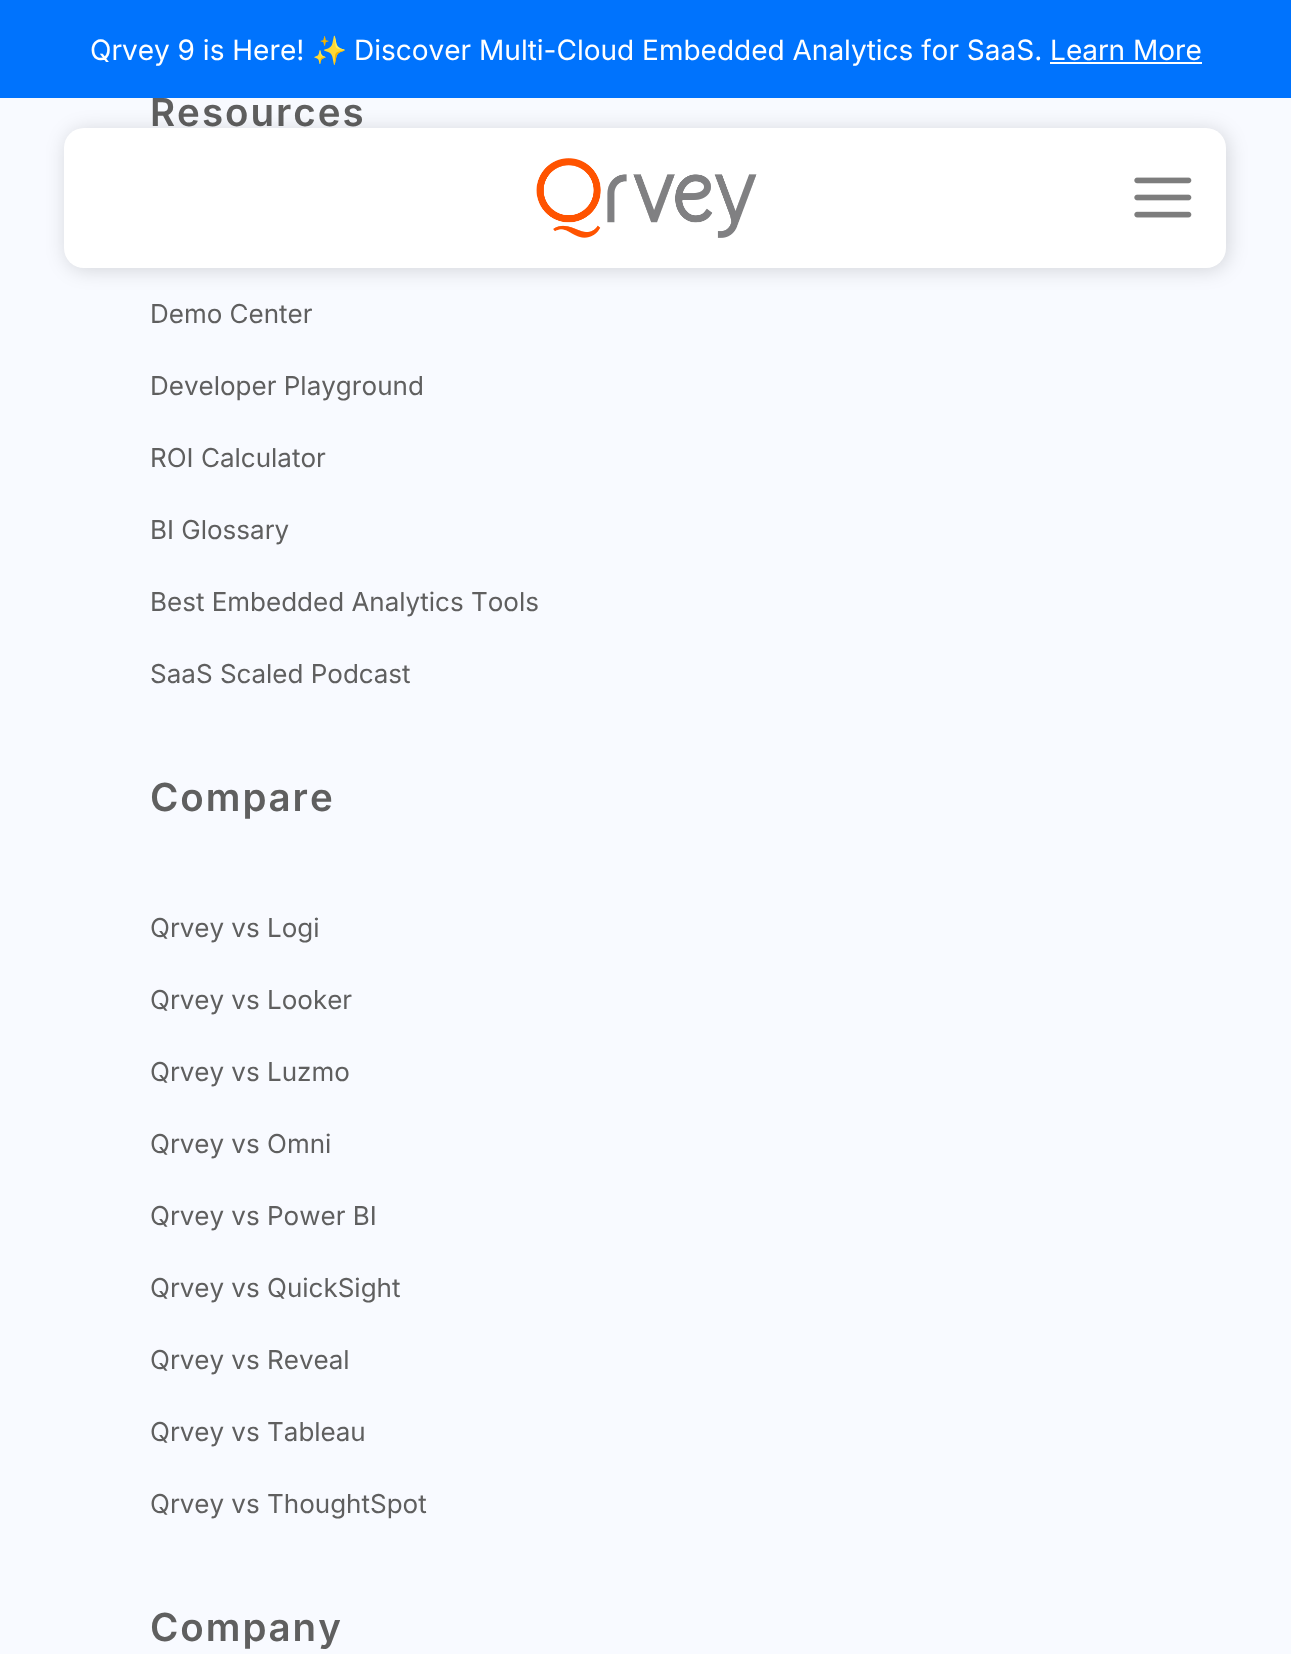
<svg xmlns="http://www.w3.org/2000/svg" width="1291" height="1654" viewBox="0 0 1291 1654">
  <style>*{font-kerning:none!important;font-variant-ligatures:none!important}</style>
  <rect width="100%" height="100%" fill="rgb(248,250,255)"/>
  <rect x="0" y="0" width="1291" height="98" fill="rgb(0,115,253)"/>
  <text x="90" y="60" font-family="Inter" font-size="28" fill="rgb(255,255,255)">Qrvey 9 is Here!</text>
  <text x="312" y="60" font-family="Noto Color Emoji" font-size="28" fill="rgb(255,255,255)">✨</text>
  <text x="354" y="60" font-family="Inter" font-size="28" fill="rgb(255,255,255)">Discover Multi-Cloud Embedded Analytics for SaaS. Learn More</text>
  <rect x="1050" y="62" width="152" height="2" fill="rgb(255,255,255)"/>
  <text x="150" y="126" font-family="Inter" font-size="38.5" font-weight="600" letter-spacing="2" fill="rgb(95,95,95)">Resources</text>
  <g font-family="Inter" font-size="26" fill="rgb(95,95,95)">
    <text x="150" y="323">Demo Center</text>
    <text x="150" y="395">Developer Playground</text>
    <text x="150" y="467">ROI Calculator</text>
    <text x="150" y="539">BI Glossary</text>
    <text x="150" y="611">Best Embedded Analytics Tools</text>
    <text x="150" y="683">SaaS Scaled Podcast</text>
  </g>
  <text x="150" y="811" font-family="Inter" font-size="38.5" font-weight="600" letter-spacing="2" fill="rgb(95,95,95)">Compare</text>
  <g font-family="Inter" font-size="26" fill="rgb(95,95,95)">
    <text x="150" y="937">Qrvey vs Logi</text>
    <text x="150" y="1009">Qrvey vs Looker</text>
    <text x="150" y="1081">Qrvey vs Luzmo</text>
    <text x="150" y="1153">Qrvey vs Omni</text>
    <text x="150" y="1225">Qrvey vs Power BI</text>
    <text x="150" y="1297">Qrvey vs QuickSight</text>
    <text x="150" y="1369">Qrvey vs Reveal</text>
    <text x="150" y="1441">Qrvey vs Tableau</text>
    <text x="150" y="1513">Qrvey vs ThoughtSpot</text>
  </g>
  <text x="150" y="1641" font-family="Inter" font-size="38.5" font-weight="600" letter-spacing="2" fill="rgb(95,95,95)">Company</text>
  <rect x="66" y="130" width="1162" height="140" rx="20" fill="rgba(0,0,0,0.15)" filter="blur(10px)"/>
  <rect x="64" y="128" width="1162" height="140" rx="20" fill="rgb(255,255,255)"/>
  <image x="536" y="158" width="221" height="80" href="pic1.png"/>
  <image x="1134" y="177" width="58" height="41" href="pic2.png"/>
</svg>
